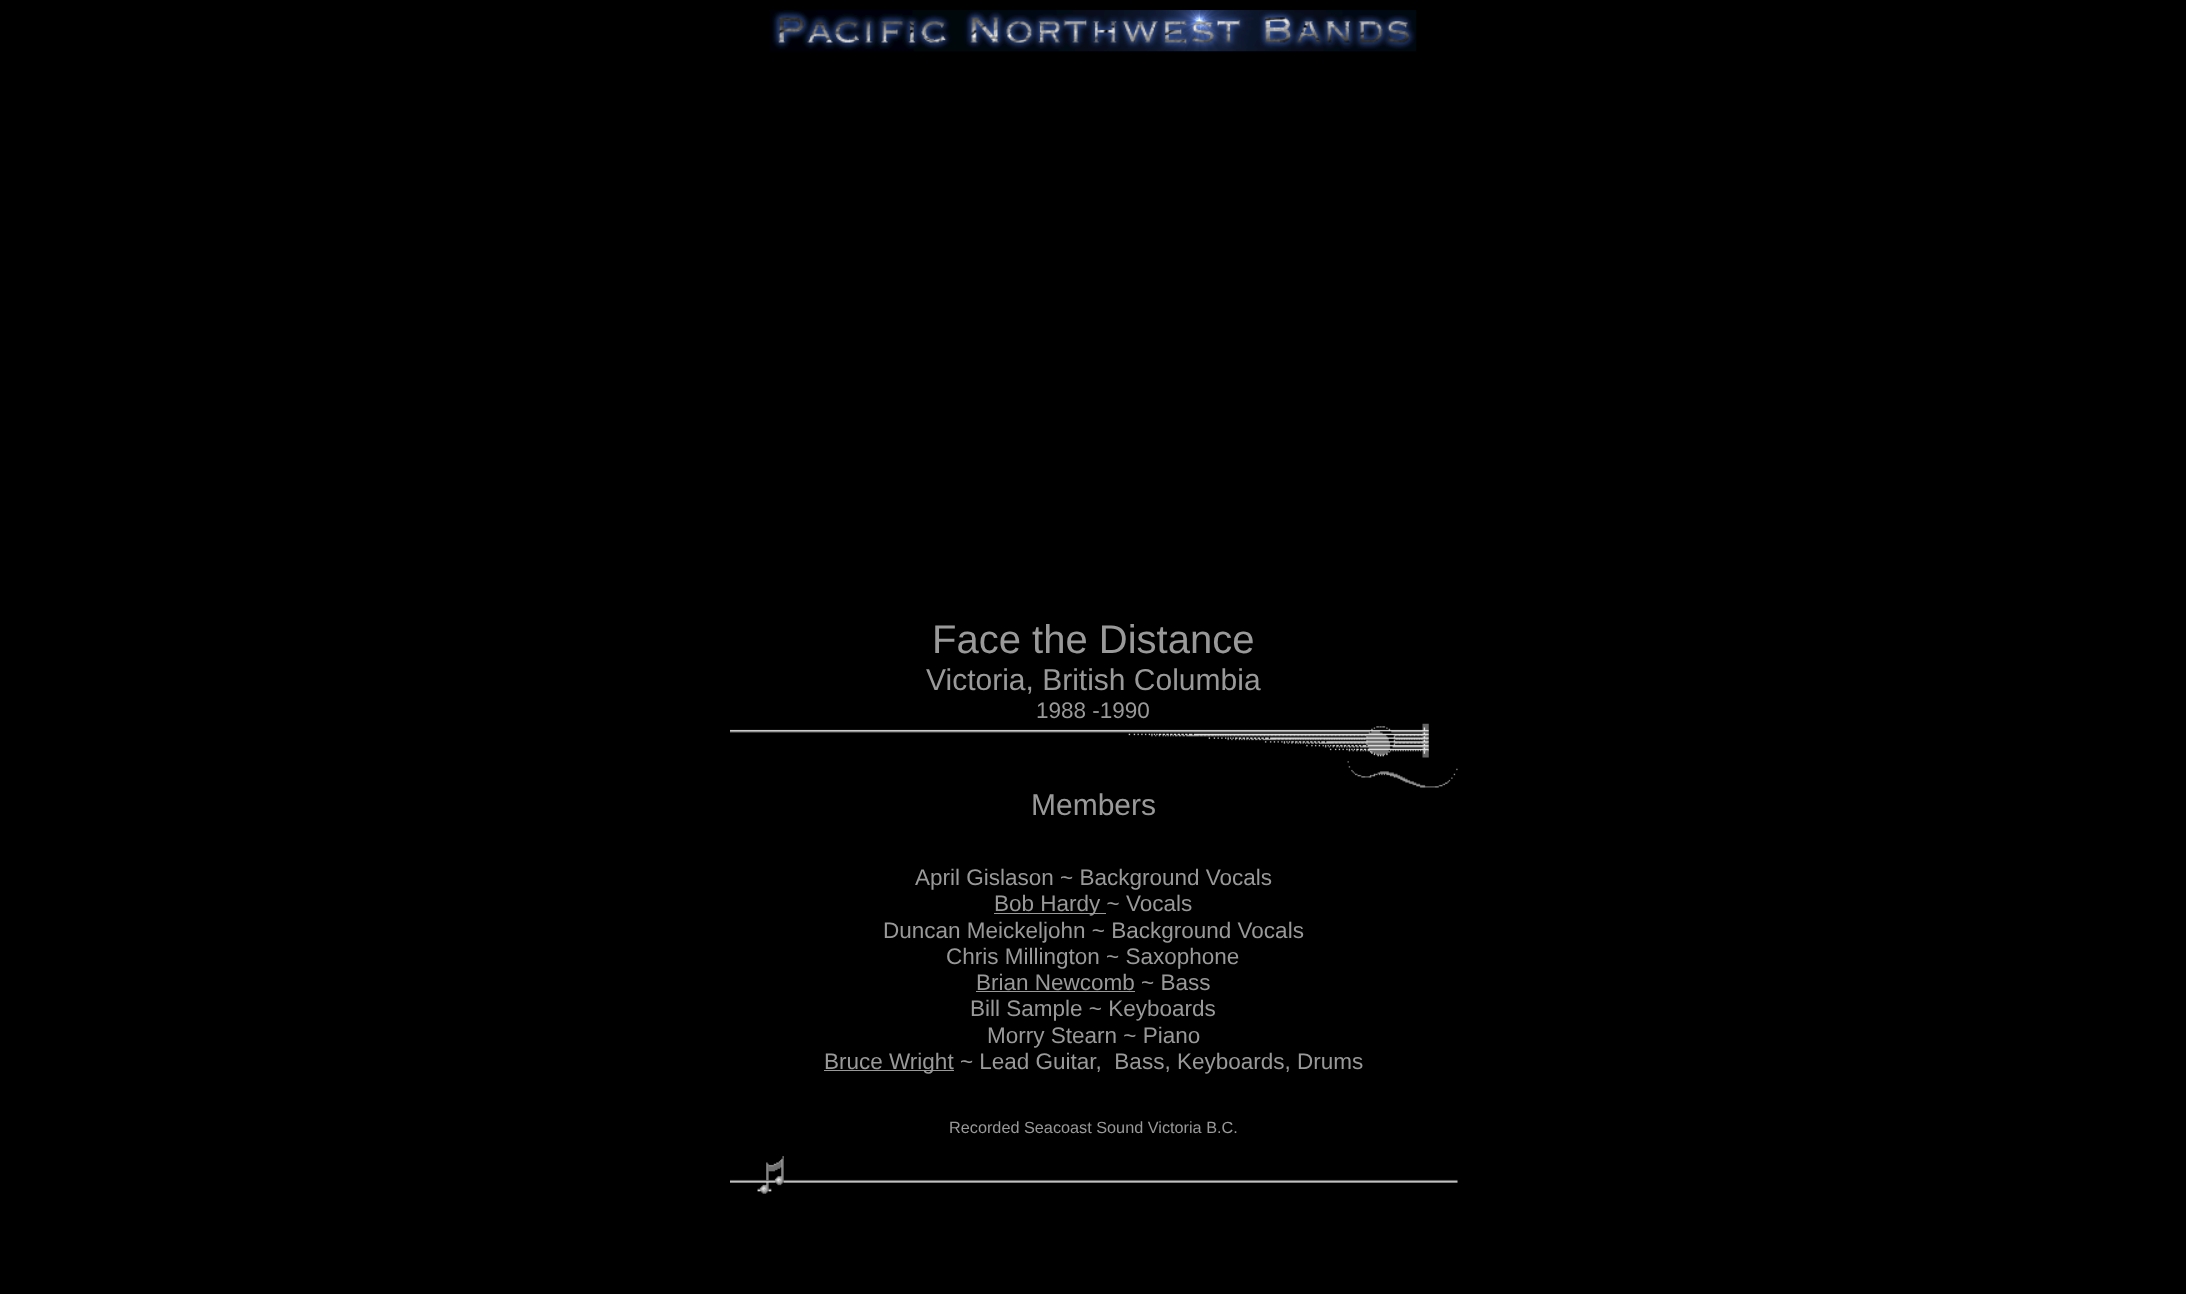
<svg xmlns="http://www.w3.org/2000/svg" width="2186" height="1294" viewBox="0 0 2186 1294">
  <rect width="100%" height="100%" fill="rgb(0,0,0)"/>
  <image x="770" y="10" width="647" height="42" href="pic1.png"/>
  <text x="932" y="653" font-family="Liberation Sans" font-size="40" fill="rgb(153,153,153)">Face the Distance</text>
  <text x="926" y="690" font-family="Liberation Sans" font-size="30" fill="rgb(153,153,153)">Victoria, British Columbia</text>
  <text x="1036" y="718" font-family="Liberation Sans" font-size="22.5" fill="rgb(153,153,153)">1988 -1990</text>
  <image x="730" y="723" width="728" height="65" href="pic2.png"/>
  <text x="1031" y="815" font-family="Liberation Sans" font-size="30" fill="rgb(153,153,153)">Members</text>
  <text x="915" y="885" font-family="Liberation Sans" font-size="22.5" fill="rgb(153,153,153)">April Gislason ~ Background Vocals</text>
  <rect x="994" y="913" width="112" height="1" fill="rgb(153,153,153)"/>
  <g font-family="Liberation Sans" font-size="22.5" fill="rgb(153,153,153)">
    <text x="994" y="911">Bob Hardy ~ Vocals</text>
    <text x="883" y="938">Duncan Meickeljohn ~ Background Vocals</text>
    <text x="946" y="964">Chris Millington ~ Saxophone</text>
    <text x="976" y="990">Brian Newcomb ~ Bass</text>
  </g>
  <rect x="976" y="991" width="159" height="1" fill="rgb(153,153,153)"/>
  <g font-family="Liberation Sans" font-size="22.5" fill="rgb(153,153,153)">
    <text x="970" y="1016">Bill Sample ~ Keyboards</text>
    <text x="987" y="1043">Morry Stearn ~ Piano</text>
  </g>
  <rect x="824" y="1070" width="130" height="1" fill="rgb(153,153,153)"/>
  <text x="824" y="1069" font-family="Liberation Sans" font-size="22.5" fill="rgb(153,153,153)" xml:space="preserve">Bruce Wright ~ Lead Guitar,  Bass, Keyboards, Drums</text>
  <text x="949" y="1133" font-family="Liberation Sans" font-size="16.25" fill="rgb(153,153,153)">Recorded Seacoast Sound Victoria B.C.</text>
  <image x="730" y="1156" width="728" height="38" href="pic3.png"/>
</svg>
